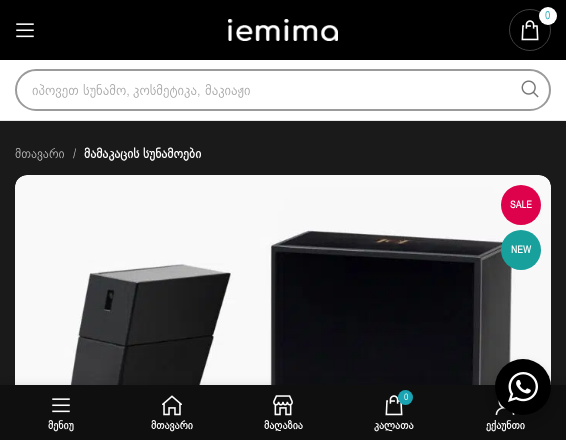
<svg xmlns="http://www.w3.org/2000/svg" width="566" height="440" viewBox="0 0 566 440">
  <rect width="100%" height="100%" fill="rgb(26,26,26)"/>
  <rect x="0" y="0" width="566" height="60" fill="rgb(0,0,0)"/>
  <circle cx="530" cy="30" r="20.5" fill="none" stroke="rgb(64,64,64)"/>
  <circle cx="548" cy="16" r="9" fill="rgb(255,255,255)"/>
  <text x="545" y="19" font-family="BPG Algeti" font-size="11" fill="rgb(26,163,178)">0</text>
  <image x="521" y="20" width="18" height="21" href="pic1.png"/>
  <image x="16" y="23" width="18" height="15" href="pic2.png"/>
  <image x="228" y="19" width="110" height="22" href="pic3.png"/>
  <rect x="0" y="60" width="566" height="60" fill="rgb(255,255,255)"/>
  <rect x="0" y="120" width="566" height="1" fill="rgb(230,230,230)"/>
  <rect x="16" y="70" width="534" height="40" rx="20" fill="none" stroke="rgb(155,155,155)" stroke-width="2"/>
  <g font-family="BPG Algeti" font-size="14" fill="rgb(168,168,168)">
    <text x="32" y="95">იპოვეთ</text>
    <text x="83" y="95">სუნამო,</text>
    <text x="133" y="95">კოსმეტიკა,</text>
    <text x="205" y="95">მაკიაჟი</text>
  </g>
  <image x="521" y="80" width="18" height="18" href="pic4.png"/>
  <text x="15" y="158" font-family="BPG Algeti" font-size="13" fill="rgb(186,186,186)">მთავარი</text>
  <text x="73" y="158" font-family="BPG Algeti" font-size="13" fill="rgb(209,209,209)">/</text>
  <g font-family="BPG Algeti" font-size="13" font-weight="bold" fill="rgb(255,255,255)">
    <text x="84" y="158">მამაკაცის</text>
    <text x="143" y="158">სუნამოები</text>
  </g>
  <image x="15" y="175" width="536" height="210" href="pic5.png"/>
  <circle cx="521" cy="205" r="20" fill="rgb(221,2,75)"/>
  <text x="510" y="208" font-family="BPG Algeti" font-size="10" font-weight="bold" fill="rgb(255,255,255)">SALE</text>
  <circle cx="521" cy="250" r="20" fill="rgb(24,160,156)"/>
  <text x="511" y="253" font-family="BPG Algeti" font-size="10" font-weight="bold" fill="rgb(255,255,255)">NEW</text>
  <rect x="0" y="385" width="566" height="55" fill="rgba(0,0,0,0.12)" filter="blur(4.5px)"/>
  <rect x="0" y="385" width="566" height="55" fill="rgb(15,15,15)"/>
  <image x="495" y="400" width="20" height="15" href="pic11.png"/>
  <rect x="493" y="363" width="60" height="60" rx="30" fill="rgba(0,0,0,0.14)" filter="blur(4px)"/>
  <circle cx="523" cy="387" r="28" fill="rgb(0,0,0)"/>
  <image x="508" y="372" width="30" height="30" href="pic6.png"/>
  <image x="52" y="398" width="18" height="15" href="pic7.png"/>
  <text x="48" y="429" font-family="BPG Algeti" font-size="11" font-weight="bold" fill="rgb(255,255,255)">მენიუ</text>
  <image x="162" y="395" width="20" height="21" href="pic8.png"/>
  <text x="151" y="429" font-family="BPG Algeti" font-size="11" font-weight="bold" fill="rgb(255,255,255)">მთავარი</text>
  <image x="273" y="395" width="20" height="21" href="pic9.png"/>
  <text x="264" y="429" font-family="BPG Algeti" font-size="11" font-weight="bold" fill="rgb(255,255,255)">მაღაზია</text>
  <image x="385" y="395" width="18" height="21" href="pic10.png"/>
  <circle cx="405.5" cy="397.5" r="7.5" fill="rgb(26,163,178)"/>
  <text x="404" y="400" font-family="BPG Algeti" font-size="9" fill="rgb(255,255,255)">0</text>
  <g font-family="BPG Algeti" font-size="11" font-weight="bold" fill="rgb(255,255,255)">
    <text x="374" y="429">კალათა</text>
    <text x="486" y="429">ექაუნთი</text>
  </g>
</svg>
